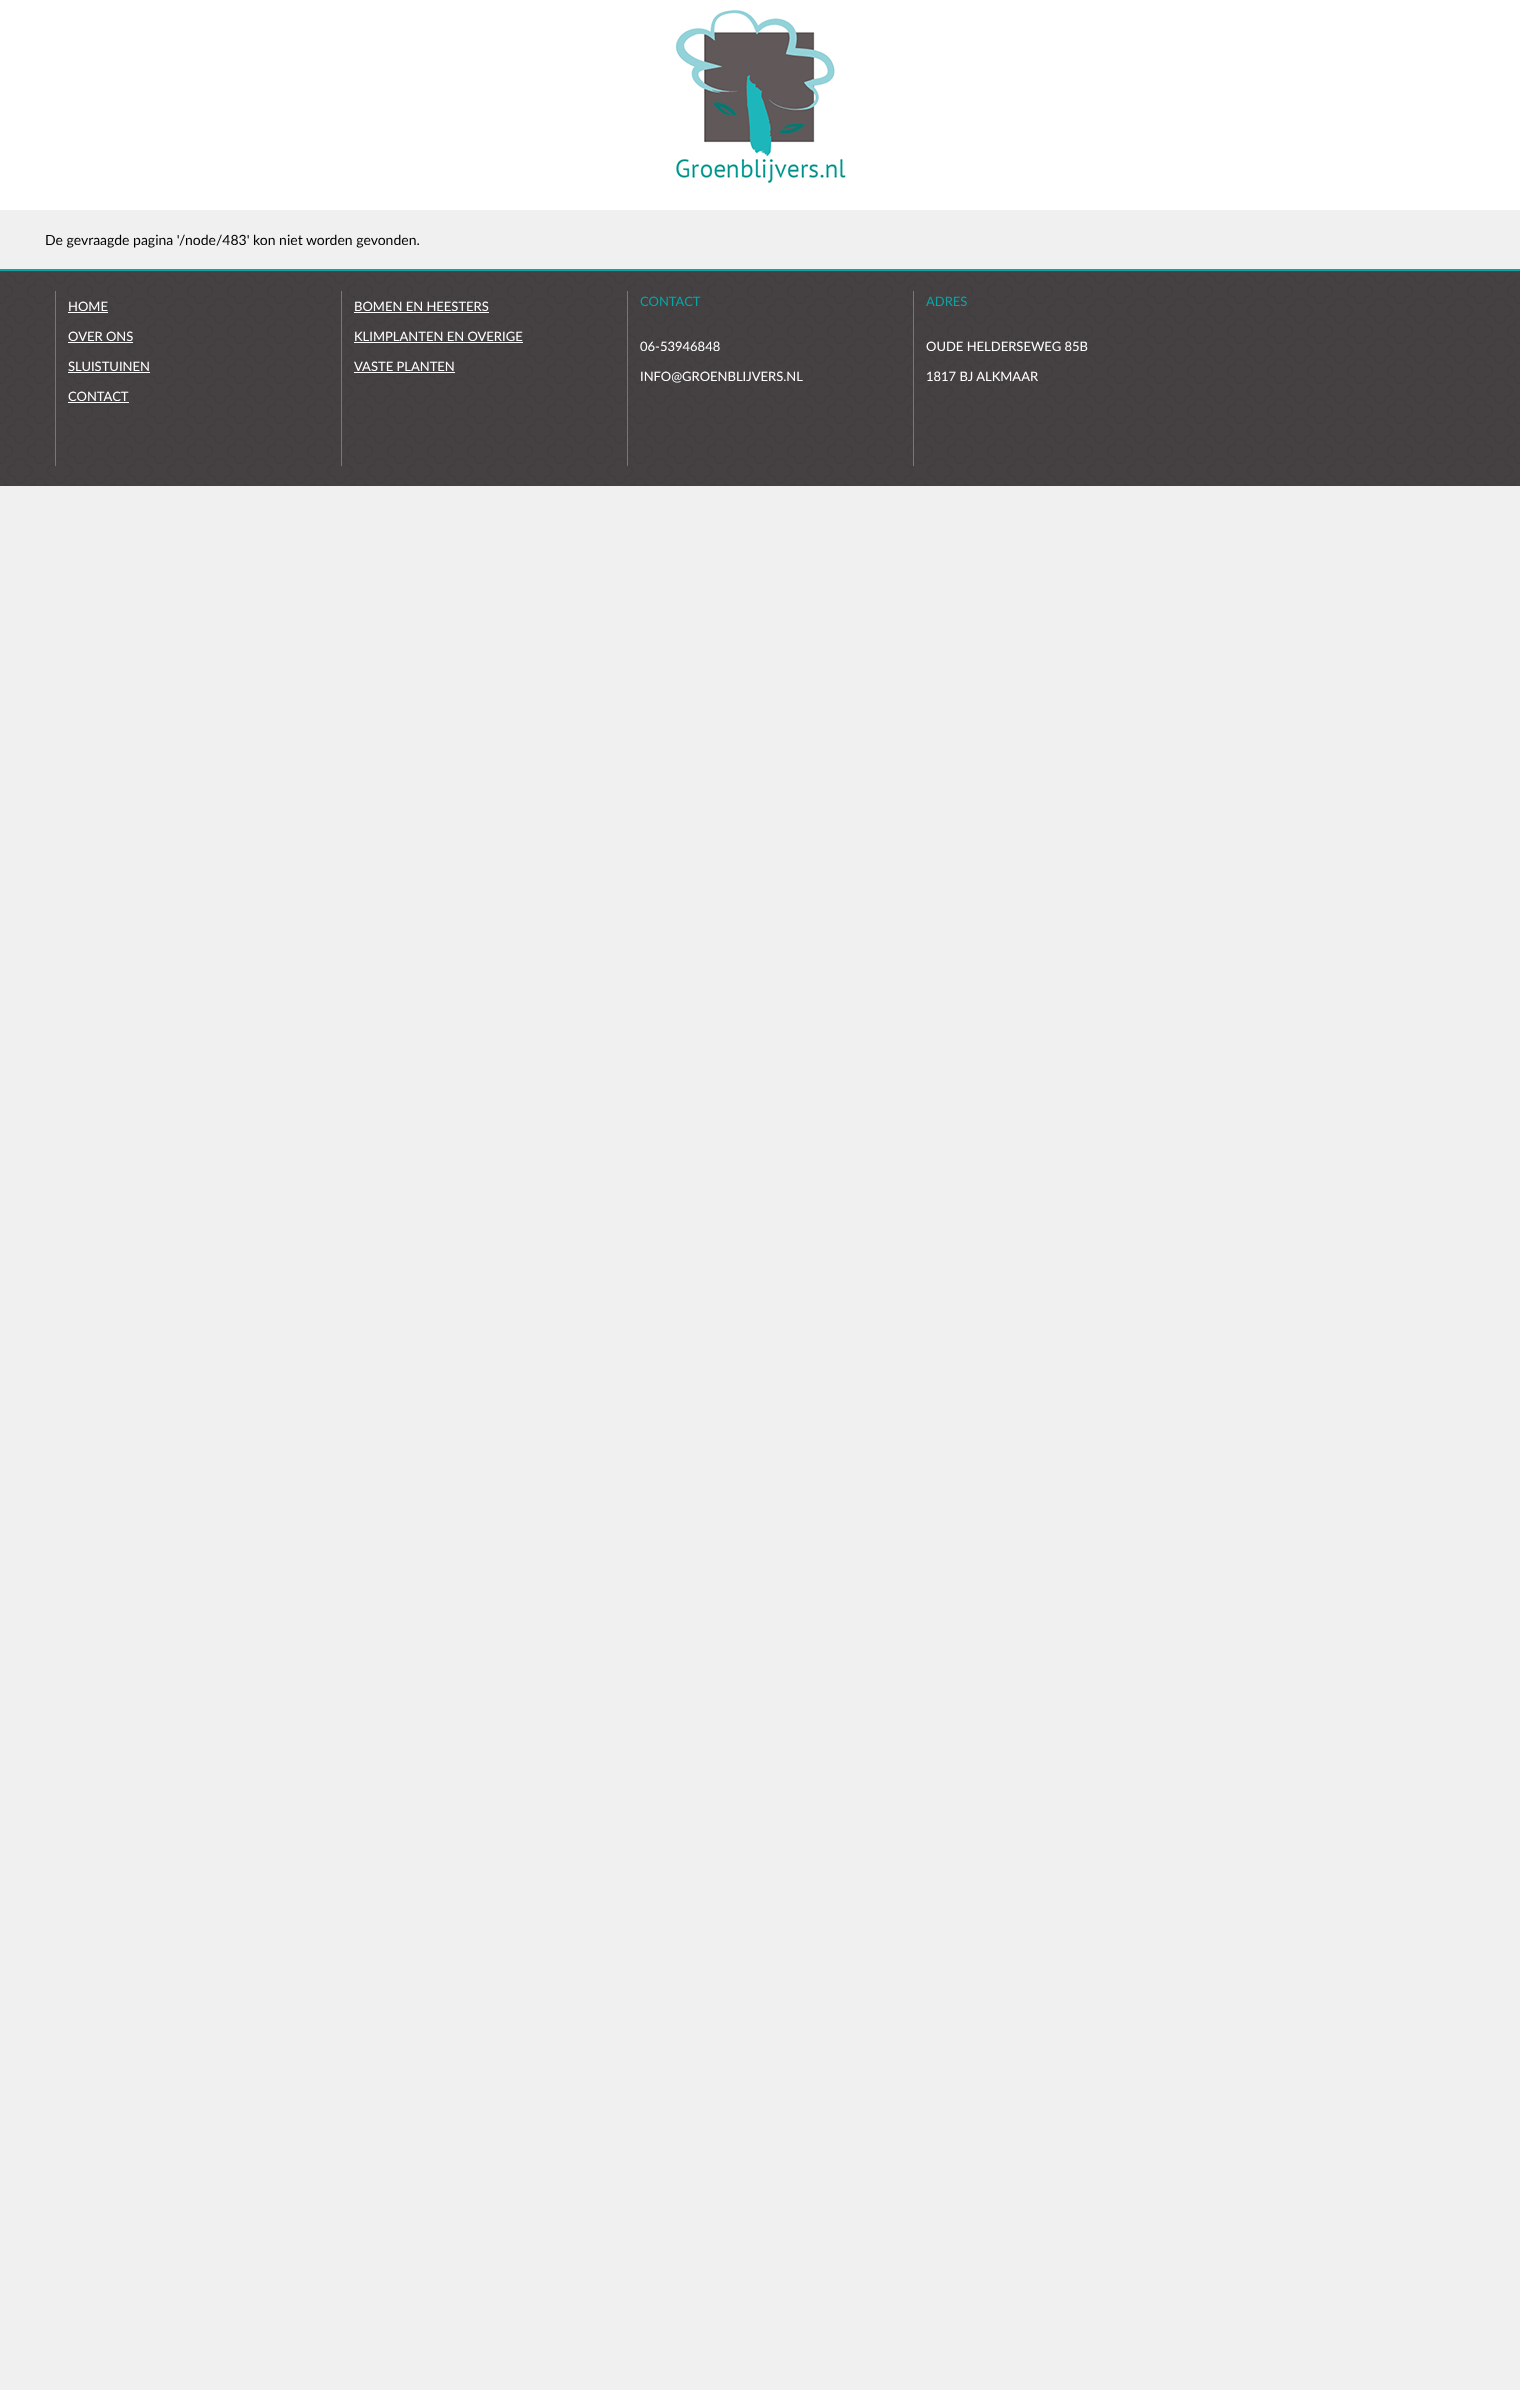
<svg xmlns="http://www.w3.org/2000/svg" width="1520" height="2390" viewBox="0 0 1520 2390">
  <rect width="100%" height="100%" fill="rgb(240,240,240)"/>
  <rect x="0" y="0" width="1520" height="210" fill="rgb(255,255,255)"/>
  <image x="675" y="10" width="171" height="173" href="pic1.png"/>
  <text x="45" y="245" font-family="Lato" font-size="14" fill="rgb(0,0,0)">De gevraagde pagina '/node/483' kon niet worden gevonden.</text>
  <image x="0" y="271" width="1520" height="215" href="pic2.png"/>
  <rect x="0" y="269" width="1520" height="2" fill="rgb(9,166,166)"/>
  <rect x="55" y="291" width="1" height="175" fill="rgb(9,166,166)"/>
  <text x="68" y="311" font-family="Lato" font-size="13" fill="rgb(255,255,255)">HOME</text>
  <rect x="68" y="312" width="40" height="1" fill="rgb(255,255,255)"/>
  <text x="68" y="341" font-family="Lato" font-size="13" fill="rgb(255,255,255)">OVER ONS</text>
  <rect x="68" y="342" width="65" height="1" fill="rgb(255,255,255)"/>
  <text x="68" y="371" font-family="Lato" font-size="13" fill="rgb(255,255,255)">SLUISTUINEN</text>
  <rect x="68" y="372" width="82" height="1" fill="rgb(255,255,255)"/>
  <text x="68" y="401" font-family="Lato" font-size="13" fill="rgb(255,255,255)">CONTACT</text>
  <rect x="68" y="402" width="61" height="1" fill="rgb(255,255,255)"/>
  <rect x="341" y="291" width="1" height="175" fill="rgb(9,166,166)"/>
  <text x="354" y="311" font-family="Lato" font-size="13" fill="rgb(255,255,255)">BOMEN EN HEESTERS</text>
  <rect x="354" y="312" width="135" height="1" fill="rgb(255,255,255)"/>
  <text x="354" y="341" font-family="Lato" font-size="13" fill="rgb(255,255,255)">KLIMPLANTEN EN OVERIGE</text>
  <rect x="354" y="342" width="169" height="1" fill="rgb(255,255,255)"/>
  <text x="354" y="371" font-family="Lato" font-size="13" fill="rgb(255,255,255)">VASTE PLANTEN</text>
  <rect x="354" y="372" width="101" height="1" fill="rgb(255,255,255)"/>
  <rect x="627" y="291" width="1" height="175" fill="rgb(9,166,166)"/>
  <text x="640" y="306" font-family="Lato" font-size="13" fill="rgb(9,166,166)">CONTACT</text>
  <g font-family="Lato" font-size="13" fill="rgb(255,255,255)">
    <text x="640" y="351">06-53946848</text>
    <text x="640" y="381">INFO@GROENBLIJVERS.NL</text>
  </g>
  <rect x="913" y="291" width="1" height="175" fill="rgb(9,166,166)"/>
  <text x="926" y="306" font-family="Lato" font-size="13" fill="rgb(9,166,166)">ADRES</text>
  <g font-family="Lato" font-size="13" fill="rgb(255,255,255)">
    <text x="926" y="351">OUDE HELDERSEWEG 85B</text>
    <text x="926" y="381">1817 BJ ALKMAAR</text>
  </g>
</svg>
